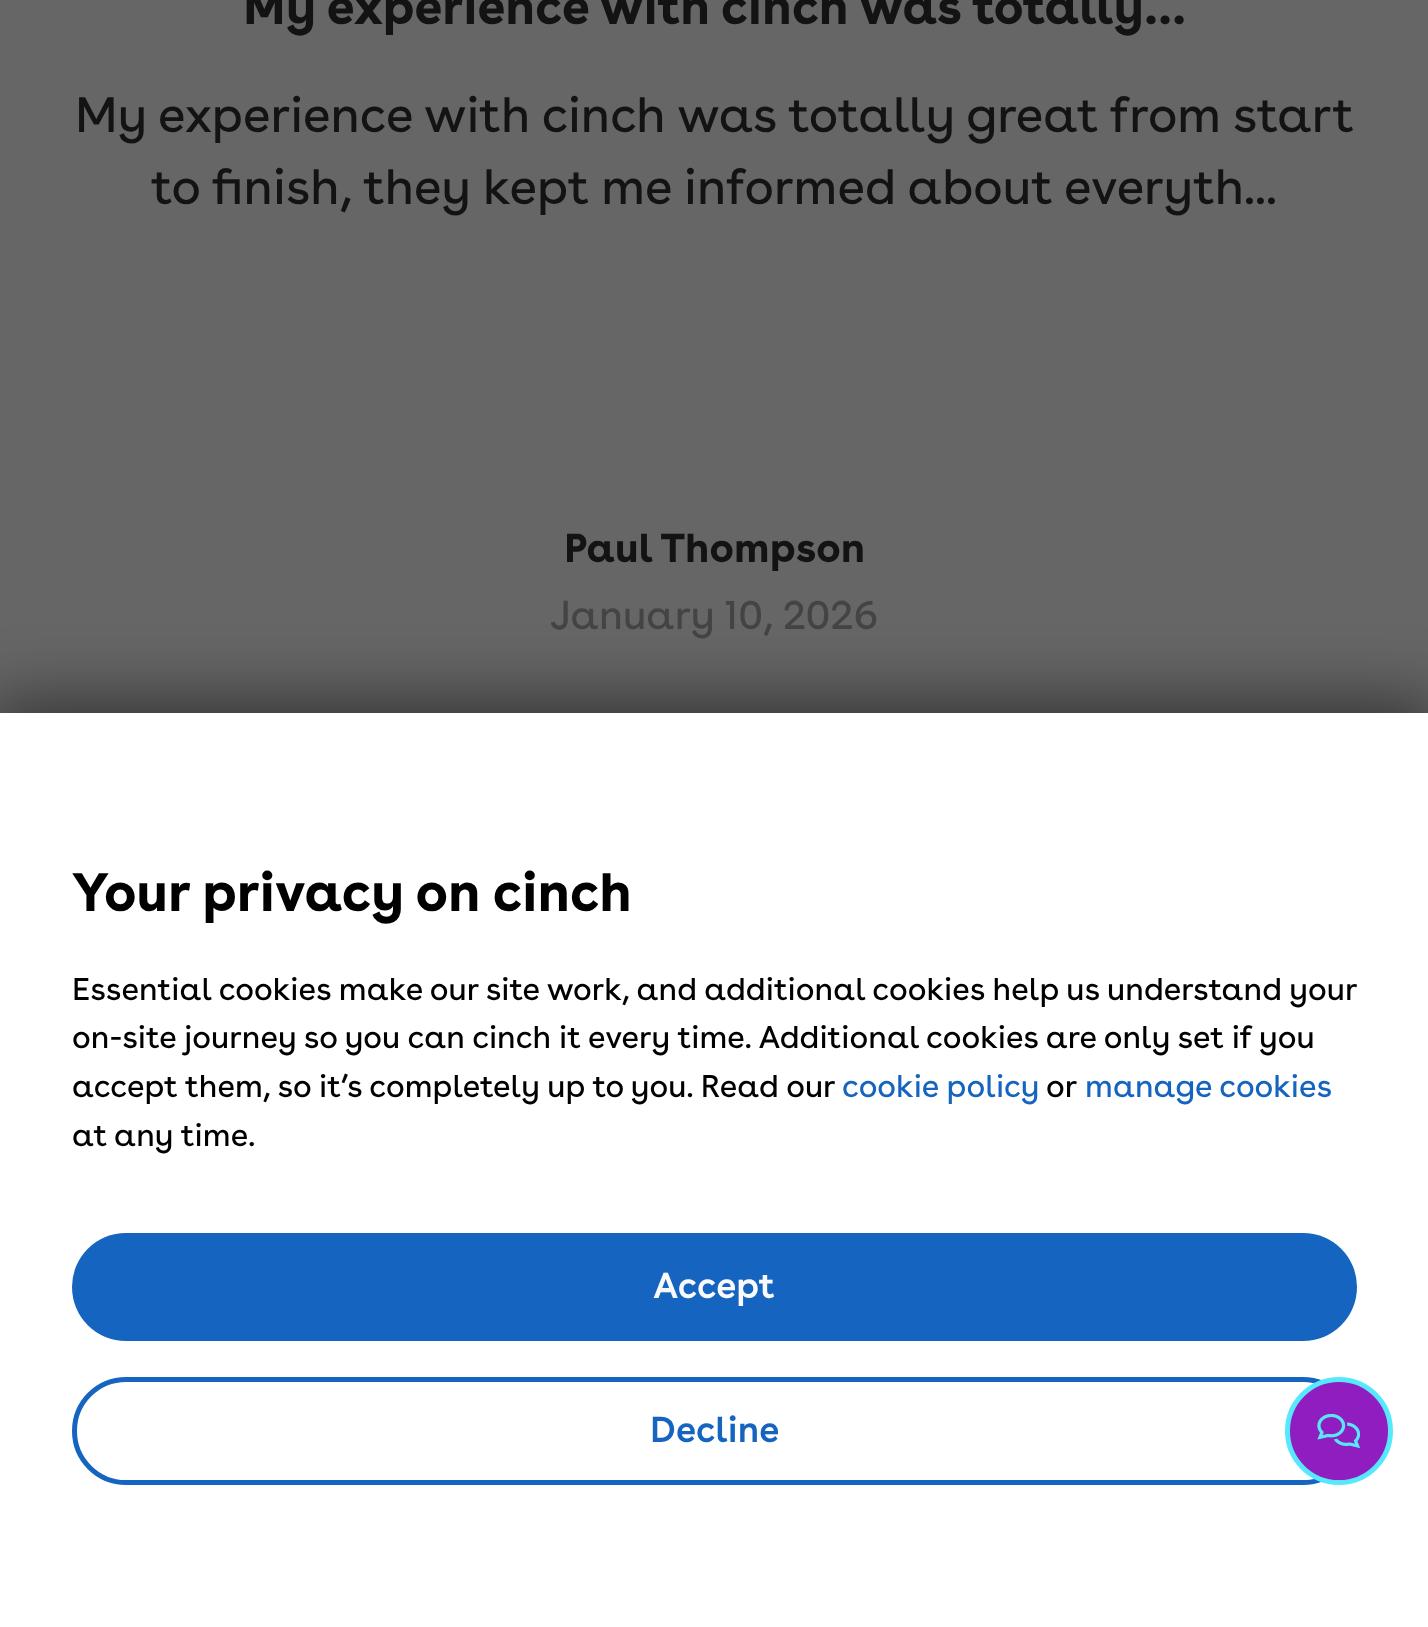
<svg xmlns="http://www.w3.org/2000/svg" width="1428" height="1627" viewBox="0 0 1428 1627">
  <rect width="100%" height="100%" fill="rgb(102,102,102)"/>
  <text x="243" y="24" font-family="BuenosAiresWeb" font-size="49.5" font-weight="bold" fill="rgb(19,19,19)">My experience with cinch was totally…</text>
  <g font-family="BuenosAiresWeb" font-size="49.5" fill="rgb(19,19,19)">
    <text x="75" y="132">My experience with cinch was totally great from start</text>
    <text x="151" y="204">to finish, they kept me informed about everyth...</text>
  </g>
  <text x="564" y="562" font-family="BuenosAiresWeb" font-size="40.5" font-weight="bold" fill="rgb(19,19,19)">Paul Thompson</text>
  <text x="550" y="629" font-family="BuenosAiresWeb" font-size="40.5" fill="rgb(68,68,68)">January 10, 2026</text>
  <rect x="-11" y="702" width="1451" height="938" fill="rgba(0,0,0,0.5)" filter="blur(34px)"/>
  <rect x="0" y="713" width="1428" height="914" fill="rgb(255,255,255)"/>
  <rect x="74.5" y="1379.5" width="1280" height="103" rx="51.5" fill="none" stroke="rgb(21,101,192)" stroke-width="5"/>
  <circle cx="1339" cy="1431" r="51.5" fill="rgb(143,29,191)" stroke="rgb(87,232,255)" stroke-width="5"/>
  <image x="1317" y="1414" width="43" height="34" href="pic1.png"/>
  <text x="72" y="911" font-family="BuenosAiresWeb" font-size="54" font-weight="bold" fill="rgb(0,0,0)">Your privacy on cinch</text>
  <g font-family="BuenosAiresWeb" font-size="31.5" fill="rgb(0,0,0)">
    <text>
      <tspan x="72" y="1000">Essential cookies make our site work, and additional cookies help us understand your</tspan>
      <tspan x="72" y="1048">on-site journey so you can cinch it every time. Additional cookies are only set if you</tspan>
      <tspan x="72" y="1097">accept them, so it’s completely up to you. Read our</tspan>
    </text>
  </g>
  <text x="842" y="1097" font-family="BuenosAiresWeb" font-size="31.5" fill="rgb(21,101,192)">cookie policy</text>
  <text x="1046" y="1097" font-family="BuenosAiresWeb" font-size="31.5" fill="rgb(0,0,0)">or</text>
  <text x="1085" y="1097" font-family="BuenosAiresWeb" font-size="31.5" fill="rgb(21,101,192)">manage cookies</text>
  <text x="72" y="1146" font-family="BuenosAiresWeb" font-size="31.5" fill="rgb(0,0,0)">at any time.</text>
  <rect x="72" y="1233" width="1285" height="108" rx="54" fill="rgb(21,101,192)"/>
  <text x="653" y="1298" font-family="BuenosAiresWeb" font-size="36" font-weight="600" font-style="italic" fill="rgb(250,250,250)">Accept</text>
  <text x="650" y="1442" font-family="BuenosAiresWeb" font-size="36" font-weight="600" font-style="italic" fill="rgb(21,101,192)">Decline</text>
</svg>
